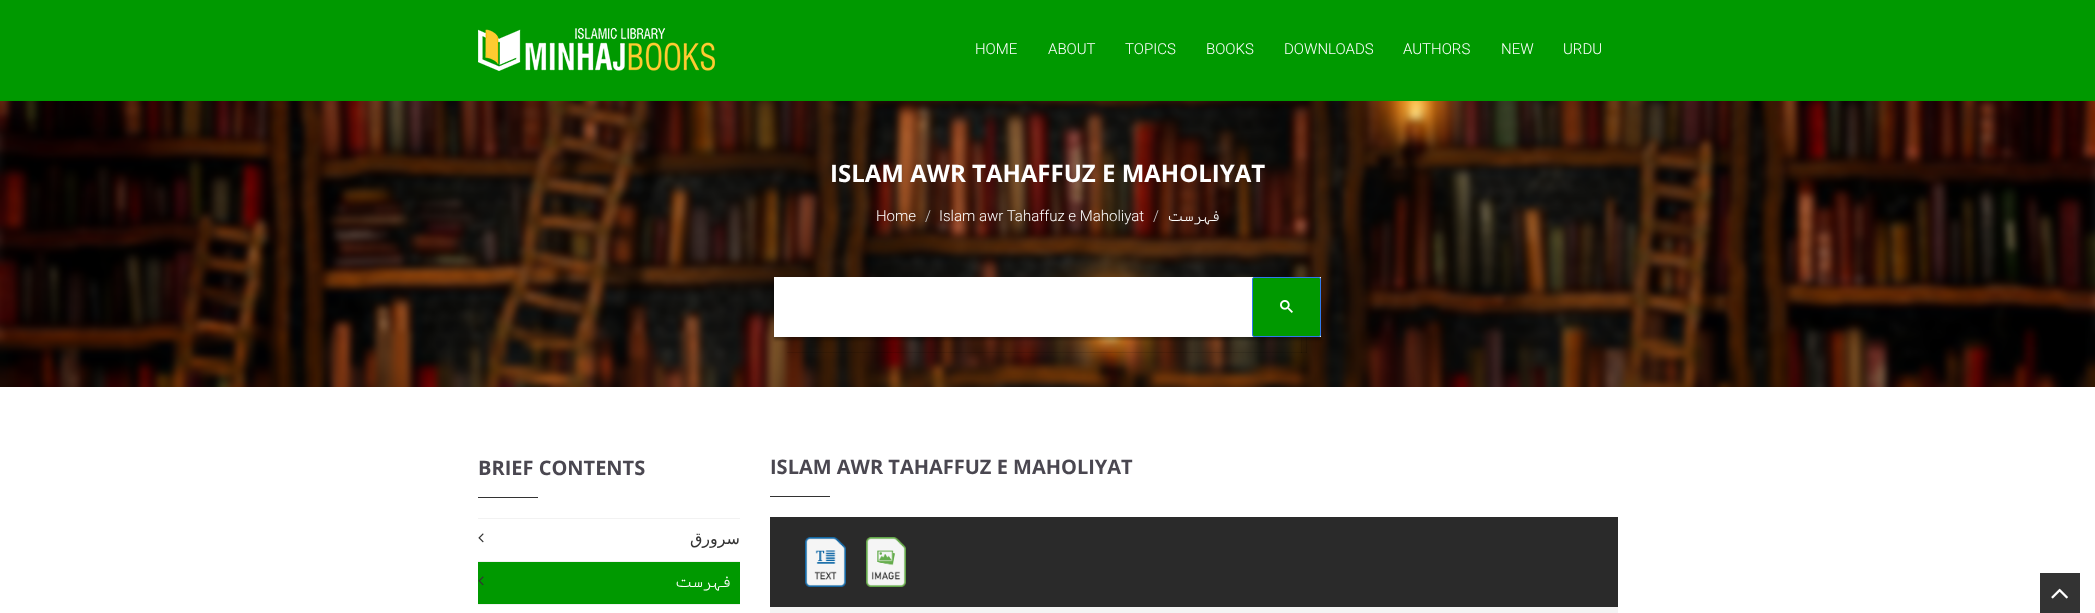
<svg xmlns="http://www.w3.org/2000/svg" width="2095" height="613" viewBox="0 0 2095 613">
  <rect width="100%" height="100%" fill="rgb(255,255,255)"/>
  <rect x="0" y="0" width="2095" height="101" fill="rgb(0,153,0)"/>
  <image x="478" y="28" width="237" height="43" href="pic1.png"/>
  <g font-family="Roboto" font-size="15" font-weight="300" fill="rgb(255,255,255)">
    <text x="975" y="54">HOME</text>
    <text x="1048" y="54">ABOUT</text>
    <text x="1125" y="54">TOPICS</text>
    <text x="1206" y="54">BOOKS</text>
    <text x="1284" y="54">DOWNLOADS</text>
    <text x="1403" y="54">AUTHORS</text>
    <text x="1501" y="54">NEW</text>
    <text x="1563" y="54">URDU</text>
  </g>
  <image x="0" y="101" width="2095" height="286" href="pic2.png"/>
  <text x="830" y="182" font-family="Open Sans" font-size="24" font-weight="bold" fill="rgb(255,255,255)">ISLAM AWR TAHAFFUZ E MAHOLIYAT</text>
  <text x="876" y="221" font-family="Roboto" font-size="15" font-weight="300" fill="rgb(255,255,255)">Home</text>
  <text x="925" y="221" font-family="Roboto" font-size="15" font-weight="300" fill="rgb(204,204,204)">/</text>
  <text x="939" y="221" font-family="Roboto" font-size="15" font-weight="300" fill="rgb(255,255,255)">Islam awr Tahaffuz e Maholiyat</text>
  <text x="1153" y="221" font-family="Roboto" font-size="15" font-weight="300" fill="rgb(204,204,204)">/</text>
  <text x="1220" y="221" font-family="Cascadia Code" font-size="15" font-weight="300" direction="rtl" fill="rgb(255,255,255)">فہرست</text>
  <rect x="774" y="280" width="547" height="60" fill="rgba(0,0,0,0.3)" filter="blur(1.5px)"/>
  <rect x="774" y="277" width="547" height="60" fill="rgb(255,255,255)"/>
  <rect x="1306" y="337" width="1" height="16" fill="rgba(0,0,0,0.1)"/>
  <rect x="1301" y="352" width="6" height="1" fill="rgba(0,0,0,0.1)"/>
  <rect x="1252.5" y="277.5" width="68" height="59" rx="1.5" fill="rgb(0,153,0)" stroke="rgb(48,121,237)"/>
  <image x="1280" y="300" width="13" height="13" href="pic3.png"/>
  <rect x="1301" y="337" width="1" height="16" fill="rgba(0,0,0,0.1)"/>
  <rect x="787" y="352" width="515" height="1" fill="rgba(0,0,0,0.1)"/>
  <text x="478" y="475" font-family="Open Sans" font-size="20" font-weight="bold" fill="rgb(74,71,80)">BRIEF CONTENTS</text>
  <rect x="478" y="497" width="60" height="1" fill="rgb(51,51,51)"/>
  <rect x="478" y="518" width="262" height="1" fill="rgb(242,242,242)"/>
  <image x="478" y="533" width="6" height="10" href="pic4.png"/>
  <text x="740" y="544" font-family="DejaVu Sans" font-size="16" direction="rtl" fill="rgb(51,51,51)">سرورق</text>
  <rect x="478" y="561" width="262" height="1" fill="rgb(242,242,242)"/>
  <rect x="478" y="562" width="262" height="42" fill="rgb(0,153,0)"/>
  <image x="478" y="576" width="6" height="10" href="pic5.png"/>
  <text x="731" y="587" font-family="Cascadia Code" font-size="16" font-weight="300" direction="rtl" fill="rgb(255,255,255)">فہرست</text>
  <rect x="478" y="604" width="262" height="1" fill="rgb(242,242,242)"/>
  <text x="770" y="474" font-family="Open Sans" font-size="20" font-weight="bold" fill="rgb(74,71,80)">ISLAM AWR TAHAFFUZ E MAHOLIYAT</text>
  <rect x="770" y="496" width="60" height="1" fill="rgb(51,51,51)"/>
  <rect x="770" y="517" width="848" height="90" fill="rgb(42,42,42)"/>
  <image x="805" y="537" width="41" height="50" href="pic6.png"/>
  <image x="866" y="537" width="40" height="50" href="pic7.png"/>
  <rect x="780" y="617" width="828" height="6" fill="none" stroke="rgb(244,244,244)" stroke-width="20"/>
  <rect x="2040" y="573" width="40" height="40" fill="rgb(51,51,51)"/>
  <image x="2051" y="588" width="17" height="11" href="pic8.png"/>
</svg>
